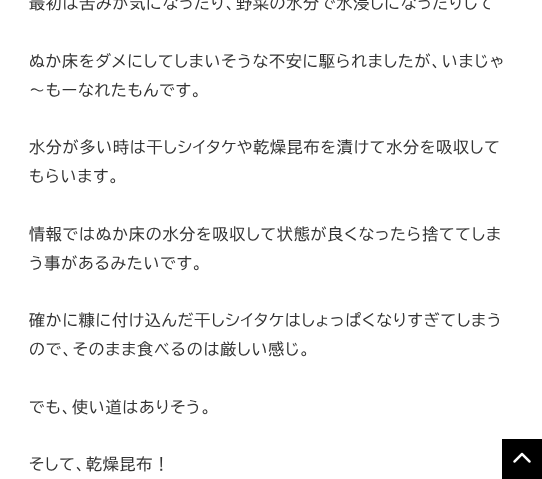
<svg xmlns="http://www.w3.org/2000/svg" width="542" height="479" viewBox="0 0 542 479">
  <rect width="100%" height="100%" fill="rgb(255,255,255)"/>
  <g font-family="BIZ UDPGothic" font-size="16" letter-spacing="0.8" fill="rgb(51,51,51)">
    <text x="29" y="9">最初は苦みが気になったり、野菜の水分で水浸しになったりして</text>
    <text>
      <tspan x="29" y="67">ぬか床をダメにしてしまいそうな不安に駆られましたが、いまじゃ</tspan>
      <tspan x="29" y="96">～もーなれたもんです。</tspan>
    </text>
    <text>
      <tspan x="29" y="153">水分が多い時は干しシイタケや乾燥昆布を漬けて水分を吸収して</tspan>
      <tspan x="29" y="182">もらいます。</tspan>
    </text>
    <text>
      <tspan x="29" y="240">情報ではぬか床の水分を吸収して状態が良くなったら捨ててしま</tspan>
      <tspan x="29" y="269">う事があるみたいです。</tspan>
    </text>
    <text>
      <tspan x="29" y="326">確かに糠に付け込んだ干しシイタケはしょっぱくなりすぎてしまう</tspan>
      <tspan x="29" y="355">ので、そのまま食べるのは厳しい感じ。</tspan>
    </text>
    <text x="29" y="413">でも、使い道はありそう。</text>
    <text x="29" y="470">そして、乾燥昆布！</text>
  </g>
  <rect x="502" y="439" width="40" height="40" fill="rgb(0,0,0)"/>
  <image x="513" y="452" width="18" height="11" href="pic1.png"/>
</svg>
